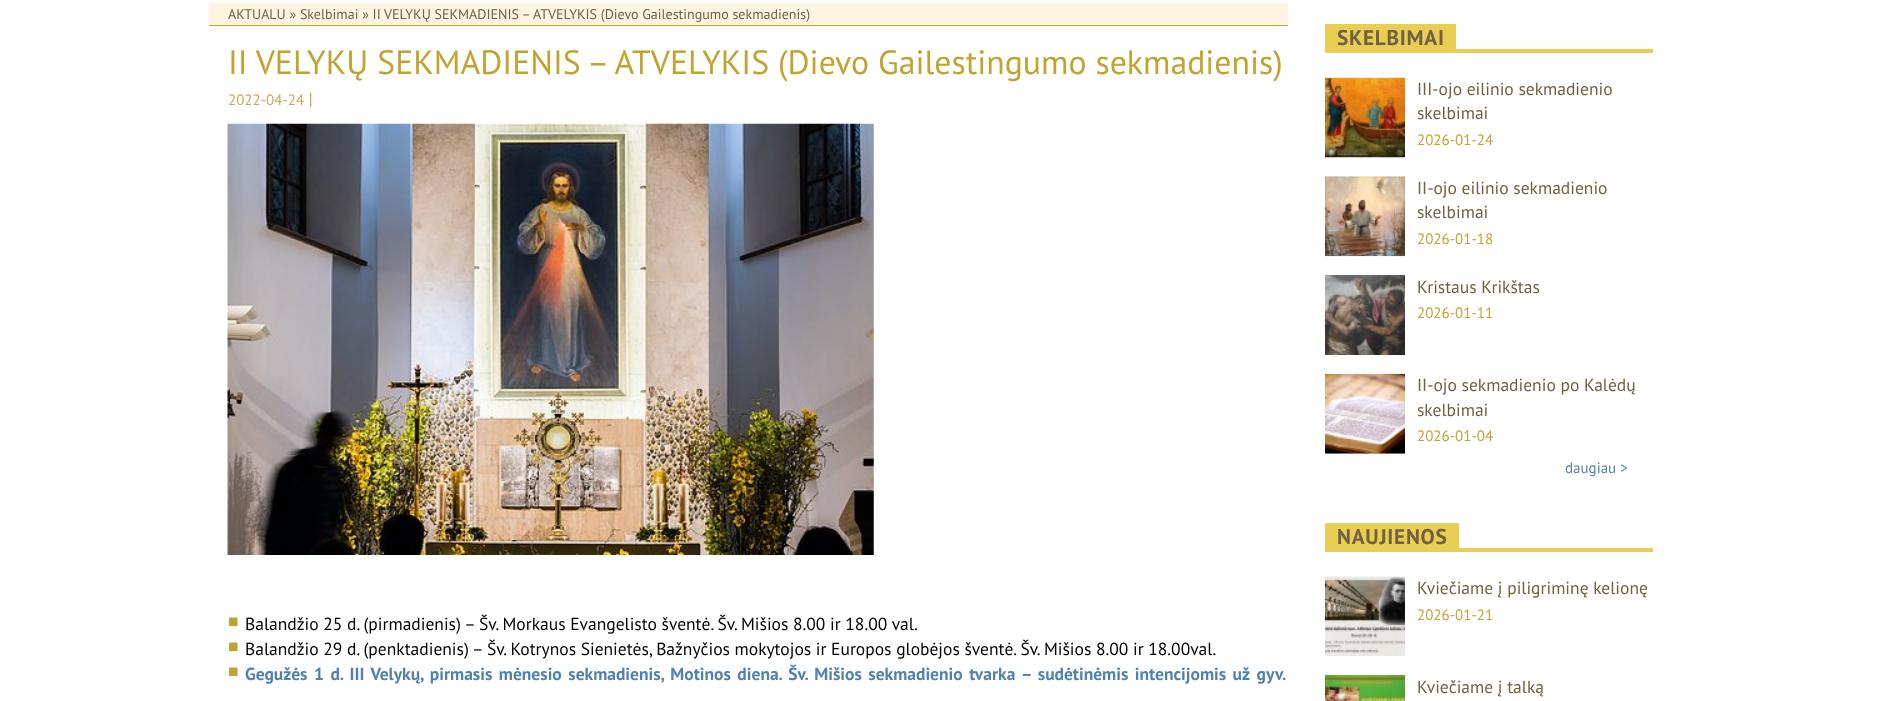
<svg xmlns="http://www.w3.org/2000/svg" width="1880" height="701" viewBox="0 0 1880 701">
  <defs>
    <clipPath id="clip1"><rect x="1418" y="78" width="235" height="73"/></clipPath>
    <clipPath id="clip2"><rect x="1418" y="176" width="235" height="74"/></clipPath>
    <clipPath id="clip3"><rect x="1418" y="374" width="235" height="74"/></clipPath>
  </defs>
  <rect width="100%" height="100%" fill="rgb(255,255,255)"/>
  <rect x="209" y="3" width="1079" height="22" fill="rgb(255,244,226)"/>
  <rect x="209" y="25" width="1079" height="1" fill="rgb(193,163,49)"/>
  <text x="228" y="19" font-family="PT Sans" font-size="14" fill="rgb(112,97,64)">AKTUALU » Skelbimai » II VELYKŲ SEKMADIENIS – ATVELYKIS (Dievo Gailestingumo sekmadienis)</text>
  <text x="228" y="74" font-family="PT Sans" font-size="33.75" fill="rgb(193,163,49)">II VELYKŲ SEKMADIENIS – ATVELYKIS (Dievo Gailestingumo sekmadienis)</text>
  <text x="228" y="105" font-family="PT Sans" font-size="15" fill="rgb(207,165,87)">2022-04-24</text>
  <text x="308" y="105" font-family="PT Sans" font-size="17.5" font-style="italic" fill="rgb(207,165,87)">|</text>
  <image x="227" y="123" width="647" height="432" href="pic1.png"/>
  <text x="228" y="627" font-family="Liberation Sans" font-size="17.5" fill="rgb(193,163,49)">■</text>
  <text x="245" y="630" font-family="PT Sans" font-size="17.5" fill="rgb(0,0,0)">Balandžio 25 d. (pirmadienis) – Šv. Morkaus Evangelisto šventė. Šv. Mišios 8.00 ir 18.00 val.</text>
  <text x="228" y="652" font-family="Liberation Sans" font-size="17.5" fill="rgb(193,163,49)">■</text>
  <text x="245" y="655" font-family="PT Sans" font-size="17.5" fill="rgb(0,0,0)">Balandžio 29 d. (penktadienis) – Šv. Kotrynos Sienietės, Bažnyčios mokytojos ir Europos globėjos šventė. Šv. Mišios 8.00 ir 18.00val.</text>
  <text x="228" y="677" font-family="Liberation Sans" font-size="17.5" fill="rgb(193,163,49)">■</text>
  <text x="245" y="680" word-spacing="2.1" font-family="PT Sans" font-size="17.5" font-weight="bold" fill="rgb(82,129,173)">Gegužės 1 d. III Velykų, pirmasis mėnesio sekmadienis, Motinos diena. Šv. Mišios sekmadienio tvarka – sudėtinėmis intencijomis už gyv.</text>
  <rect x="1325" y="49" width="328" height="4" fill="rgb(232,206,85)"/>
  <rect x="1325" y="24" width="131" height="25" fill="rgb(232,206,85)"/>
  <text x="1337" y="45" font-family="PT Sans" font-size="21.25" font-weight="bold" letter-spacing="0.75" fill="rgb(112,97,64)">SKELBIMAI</text>
  <image x="1325" y="77" width="80" height="81" href="pic2.png"/>
  <text x="1417" y="95" font-family="PT Sans" font-size="17.5" fill="rgb(112,97,64)">III-ojo eilinio sekmadienio</text>
  <g clip-path="url(#clip1)">
    <text x="1417" y="119" font-family="PT Sans" font-size="17.5" fill="rgb(112,97,64)">skelbimai</text>
  </g>
  <text x="1417" y="145" font-family="PT Sans" font-size="15" fill="rgb(193,163,49)">2026-01-24</text>
  <image x="1325" y="176" width="80" height="81" href="pic3.png"/>
  <text x="1417" y="194" font-family="PT Sans" font-size="17.5" fill="rgb(112,97,64)">II-ojo eilinio sekmadienio</text>
  <g clip-path="url(#clip2)">
    <text x="1417" y="218" font-family="PT Sans" font-size="17.5" fill="rgb(112,97,64)">skelbimai</text>
  </g>
  <text x="1417" y="244" font-family="PT Sans" font-size="15" fill="rgb(193,163,49)">2026-01-18</text>
  <image x="1325" y="275" width="80" height="80" href="pic4.png"/>
  <text x="1417" y="293" font-family="PT Sans" font-size="17.5" fill="rgb(112,97,64)">Kristaus Krikštas</text>
  <text x="1417" y="318" font-family="PT Sans" font-size="15" fill="rgb(193,163,49)">2026-01-11</text>
  <image x="1325" y="373" width="80" height="81" href="pic5.png"/>
  <text x="1417" y="391" font-family="PT Sans" font-size="17.5" fill="rgb(112,97,64)">II-ojo sekmadienio po Kalėdų</text>
  <g clip-path="url(#clip3)">
    <text x="1417" y="416" font-family="PT Sans" font-size="17.5" fill="rgb(112,97,64)">skelbimai</text>
  </g>
  <text x="1417" y="441" font-family="PT Sans" font-size="15" fill="rgb(193,163,49)">2026-01-04</text>
  <text x="1565" y="473" font-family="PT Sans" font-size="15" fill="rgb(82,129,173)">daugiau &gt;</text>
  <rect x="1325" y="548" width="328" height="4" fill="rgb(232,206,85)"/>
  <rect x="1325" y="523" width="134" height="25" fill="rgb(232,206,85)"/>
  <text x="1337" y="544" font-family="PT Sans" font-size="21.25" font-weight="bold" letter-spacing="0.75" fill="rgb(112,97,64)">NAUJIENOS</text>
  <image x="1325" y="576" width="80" height="80" href="pic6.png"/>
  <text x="1417" y="594" font-family="PT Sans" font-size="17.5" fill="rgb(112,97,64)">Kviečiame į piligriminę kelionę</text>
  <text x="1417" y="620" font-family="PT Sans" font-size="15" fill="rgb(193,163,49)">2026-01-21</text>
  <image x="1325" y="675" width="80" height="26" href="pic7.png"/>
  <text x="1417" y="693" font-family="PT Sans" font-size="17.5" fill="rgb(112,97,64)">Kviečiame į talką</text>
</svg>
